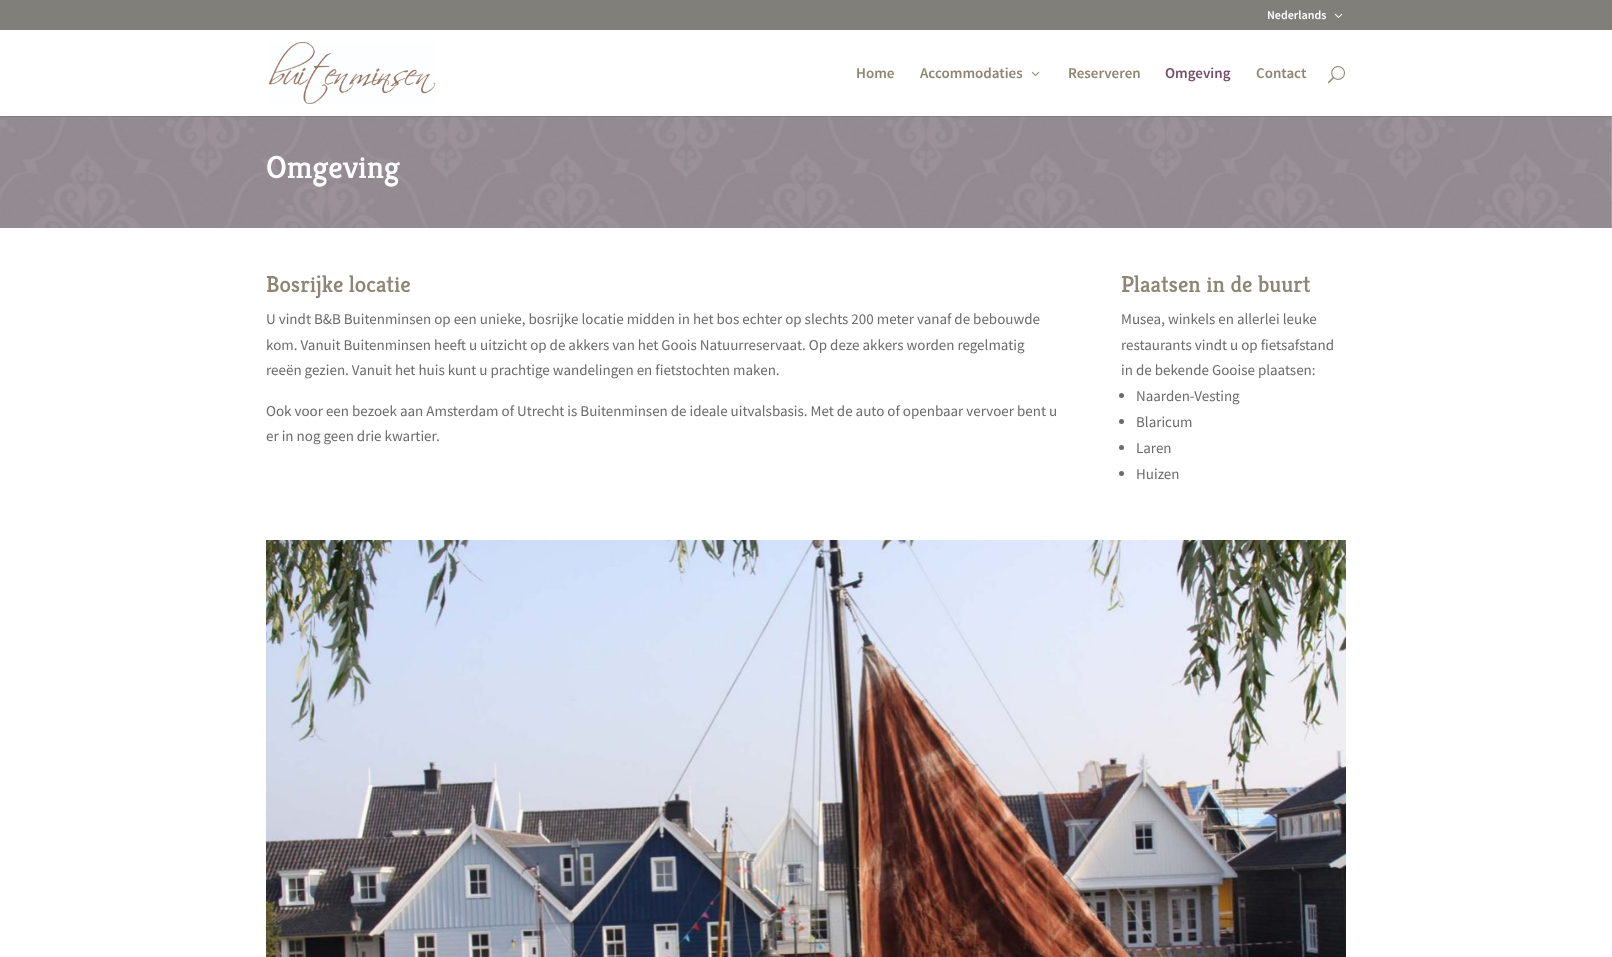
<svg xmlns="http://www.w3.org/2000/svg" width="1612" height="957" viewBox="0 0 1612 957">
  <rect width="100%" height="100%" fill="rgb(255,255,255)"/>
  <rect x="0" y="0" width="1612" height="30" fill="rgb(129,127,121)"/>
  <text x="1267" y="19" font-family="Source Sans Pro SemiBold" font-size="12" font-weight="600" fill="rgb(255,255,255)">Nederlands</text>
  <image x="1334" y="13" width="9" height="5" href="pic1.png"/>
  <image x="0" y="116" width="1612" height="112" href="pic5.png"/>
  <rect x="0" y="116" width="1612" height="1" fill="rgba(0,0,0,0.1)"/>
  <image x="269" y="42" width="166" height="62" href="pic2.png"/>
  <g font-family="Source Sans Pro SemiBold" font-size="15" font-weight="600" fill="rgb(142,133,116)">
    <text x="856" y="78">Home</text>
    <text x="920" y="78">Accommodaties</text>
  </g>
  <image x="1031" y="71" width="9" height="5" href="pic3.png"/>
  <text x="1068" y="78" font-family="Source Sans Pro SemiBold" font-size="15" font-weight="600" fill="rgb(142,133,116)">Reserveren</text>
  <text x="1165" y="78" font-family="Source Sans Pro SemiBold" font-size="15" font-weight="600" fill="rgb(117,75,106)">Omgeving</text>
  <text x="1256" y="78" font-family="Source Sans Pro SemiBold" font-size="15" font-weight="600" fill="rgb(142,133,116)">Contact</text>
  <image x="1328" y="66" width="17" height="18" href="pic4.png"/>
  <text x="266" y="178" font-family="Kreon" font-size="32" font-weight="500" fill="rgb(255,255,255)">Omgeving</text>
  <text x="266" y="292" font-family="Kreon" font-size="23" font-weight="500" fill="rgb(142,133,116)">Bosrijke locatie</text>
  <g font-family="Source Sans Pro" font-size="15" fill="rgb(107,107,107)">
    <text>
      <tspan x="266" y="324">U vindt B&amp;B Buitenminsen op een unieke, bosrijke locatie midden in het bos echter op slechts 200 meter vanaf de bebouwde</tspan>
      <tspan x="266" y="350">kom. Vanuit Buitenminsen heeft u uitzicht op de akkers van het Goois Natuurreservaat. Op deze akkers worden regelmatig</tspan>
      <tspan x="266" y="375">reeën gezien. Vanuit het huis kunt u prachtige wandelingen en fietstochten maken.</tspan>
    </text>
    <text>
      <tspan x="266" y="416">Ook voor een bezoek aan Amsterdam of Utrecht is Buitenminsen de ideale uitvalsbasis. Met de auto of openbaar vervoer bent u</tspan>
      <tspan x="266" y="441">er in nog geen drie kwartier.</tspan>
    </text>
  </g>
  <text x="1121" y="292" font-family="Kreon" font-size="23" font-weight="500" fill="rgb(142,133,116)">Plaatsen in de buurt</text>
  <g font-family="Source Sans Pro" font-size="15" fill="rgb(107,107,107)">
    <text>
      <tspan x="1121" y="324">Musea, winkels en allerlei leuke</tspan>
      <tspan x="1121" y="350">restaurants vindt u op fietsafstand</tspan>
      <tspan x="1121" y="375">in de bekende Gooise plaatsen:</tspan>
    </text>
  </g>
  <circle cx="1121.5" cy="395.5" r="2.5" fill="rgb(107,107,107)"/>
  <text x="1136" y="401" font-family="Source Sans Pro" font-size="15" fill="rgb(107,107,107)">Naarden-Vesting</text>
  <circle cx="1121.5" cy="421.5" r="2.5" fill="rgb(107,107,107)"/>
  <text x="1136" y="427" font-family="Source Sans Pro" font-size="15" fill="rgb(107,107,107)">Blaricum</text>
  <circle cx="1121.5" cy="447.5" r="2.5" fill="rgb(107,107,107)"/>
  <text x="1136" y="453" font-family="Source Sans Pro" font-size="15" fill="rgb(107,107,107)">Laren</text>
  <circle cx="1121.5" cy="473.5" r="2.5" fill="rgb(107,107,107)"/>
  <text x="1136" y="479" font-family="Source Sans Pro" font-size="15" fill="rgb(107,107,107)">Huizen</text>
  <image x="266" y="540" width="1080" height="417" href="pic6.png"/>
</svg>
